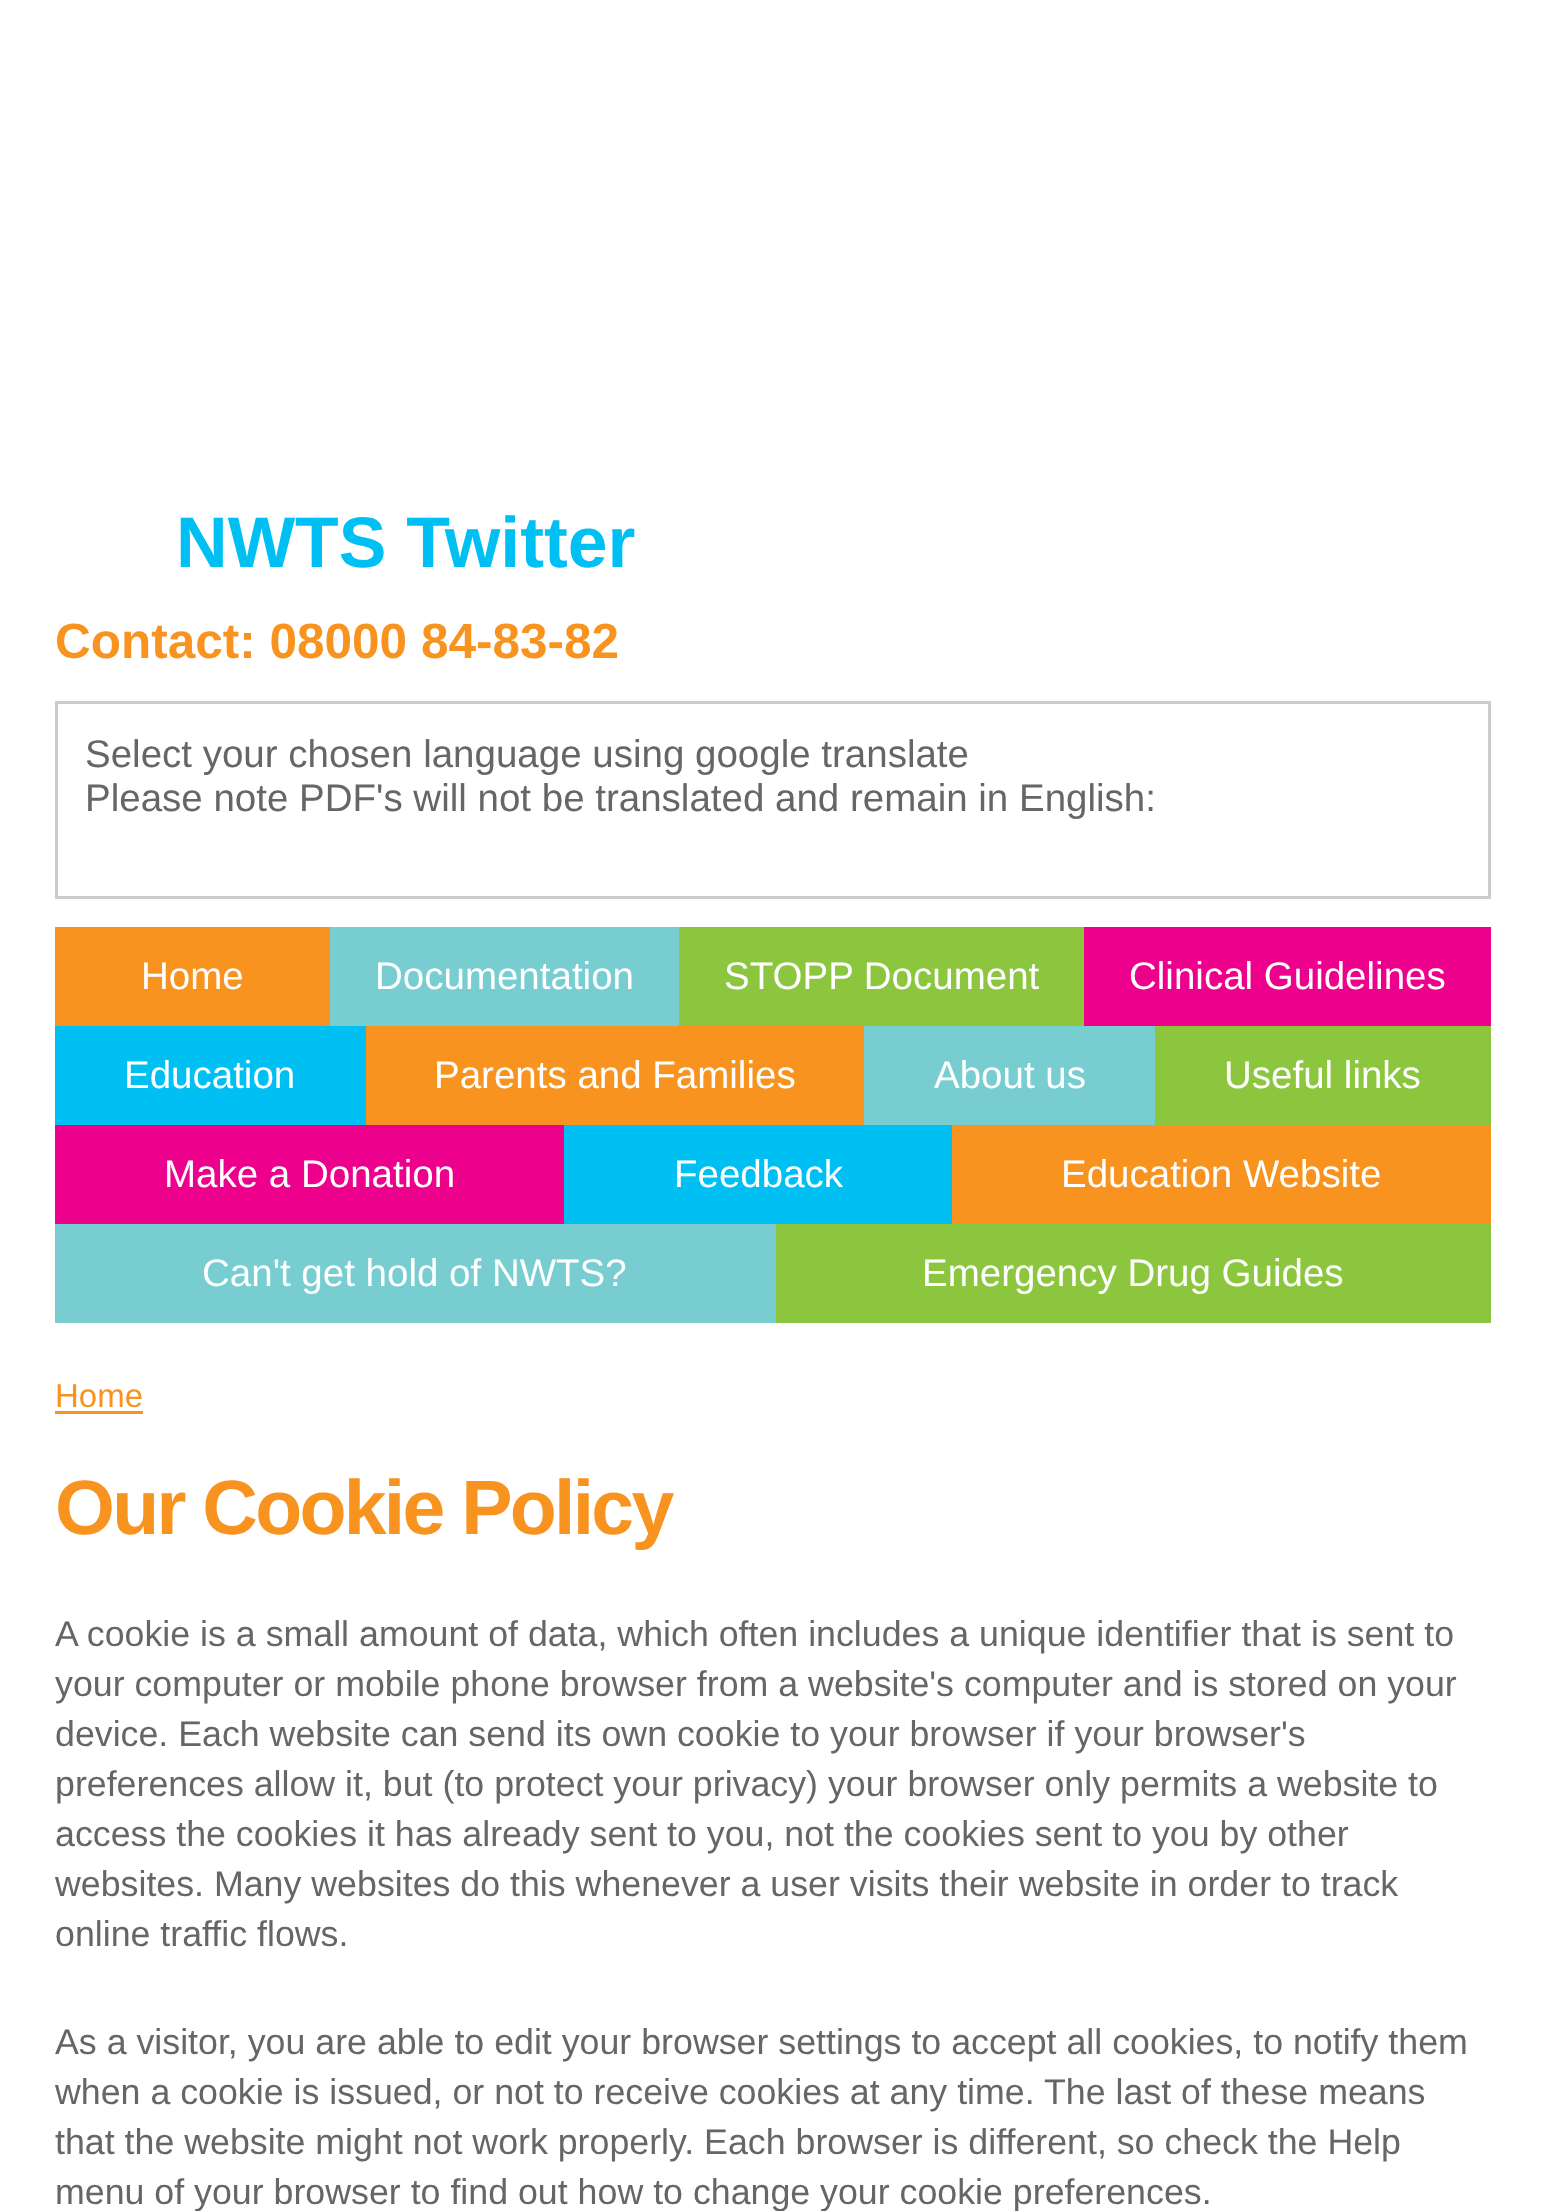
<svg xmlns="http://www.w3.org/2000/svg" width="1545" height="2211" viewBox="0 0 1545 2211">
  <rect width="100%" height="100%" fill="rgb(255,255,255)"/>
  <text x="176" y="567" font-family="Liberation Sans" font-size="71.5" font-weight="bold" fill="rgb(0,192,243)">NWTS Twitter</text>
  <text x="55" y="658" font-family="Liberation Sans" font-size="49.5" font-weight="bold" fill="rgb(247,147,30)">Contact: 08000 84-83-82</text>
  <rect x="56.5" y="702.5" width="1433" height="195" fill="none" stroke="rgb(204,204,204)" stroke-width="3"/>
  <g font-family="Liberation Sans" font-size="38.5" fill="rgb(102,102,102)">
    <text>
      <tspan x="85" y="767">Select your chosen language using google translate</tspan>
      <tspan x="85" y="811">Please note PDF's will not be translated and remain in English:</tspan>
    </text>
  </g>
  <rect x="55" y="927" width="275" height="99" fill="rgb(247,147,30)"/>
  <text x="141" y="989" font-family="Liberation Sans" font-size="38.5" fill="rgb(255,255,255)">Home</text>
  <rect x="330" y="927" width="349" height="99" fill="rgb(120,205,209)"/>
  <text x="375" y="989" font-family="Liberation Sans" font-size="38.5" fill="rgb(255,255,255)">Documentation</text>
  <rect x="679" y="927" width="405" height="99" fill="rgb(140,198,63)"/>
  <text x="724" y="989" font-family="Liberation Sans" font-size="38.5" fill="rgb(255,255,255)">STOPP Document</text>
  <rect x="1084" y="927" width="407" height="99" fill="rgb(236,0,140)"/>
  <text x="1129" y="989" font-family="Liberation Sans" font-size="38.5" fill="rgb(255,255,255)">Clinical Guidelines</text>
  <rect x="55" y="1026" width="311" height="99" fill="rgb(0,192,243)"/>
  <text x="124" y="1088" font-family="Liberation Sans" font-size="38.5" fill="rgb(255,255,255)">Education</text>
  <rect x="366" y="1026" width="498" height="99" fill="rgb(247,147,30)"/>
  <text x="434" y="1088" font-family="Liberation Sans" font-size="38.5" fill="rgb(255,255,255)">Parents and Families</text>
  <rect x="864" y="1026" width="291" height="99" fill="rgb(120,205,209)"/>
  <text x="934" y="1088" font-family="Liberation Sans" font-size="38.5" fill="rgb(255,255,255)">About us</text>
  <rect x="1155" y="1026" width="336" height="99" fill="rgb(140,198,63)"/>
  <text x="1224" y="1088" font-family="Liberation Sans" font-size="38.5" fill="rgb(255,255,255)">Useful links</text>
  <rect x="55" y="1125" width="509" height="99" fill="rgb(236,0,140)"/>
  <text x="164" y="1187" font-family="Liberation Sans" font-size="38.5" fill="rgb(255,255,255)">Make a Donation</text>
  <rect x="564" y="1125" width="388" height="99" fill="rgb(0,192,243)"/>
  <text x="674" y="1187" font-family="Liberation Sans" font-size="38.5" fill="rgb(255,255,255)">Feedback</text>
  <rect x="952" y="1125" width="539" height="99" fill="rgb(247,147,30)"/>
  <text x="1061" y="1187" font-family="Liberation Sans" font-size="38.5" fill="rgb(255,255,255)">Education Website</text>
  <rect x="55" y="1224" width="721" height="99" fill="rgb(120,205,209)"/>
  <text x="202" y="1286" font-family="Liberation Sans" font-size="38.5" fill="rgb(255,255,255)">Can't get hold of NWTS?</text>
  <rect x="776" y="1224" width="715" height="99" fill="rgb(140,198,63)"/>
  <text x="922" y="1286" font-family="Liberation Sans" font-size="38.5" fill="rgb(255,255,255)">Emergency Drug Guides</text>
  <text x="55" y="1407" font-family="Liberation Sans" font-size="33" fill="rgb(247,147,30)">Home</text>
  <rect x="55" y="1411" width="88" height="3" fill="rgb(247,147,30)"/>
  <text x="55" y="1534" font-family="Liberation Sans" font-size="77" font-weight="bold" letter-spacing="-2.75" fill="rgb(247,147,30)">Our Cookie Policy</text>
  <g font-family="Liberation Sans" font-size="35.75" fill="rgb(102,102,102)">
    <text>
      <tspan x="55" y="1646">A cookie is a small amount of data, which often includes a unique identifier that is sent to</tspan>
      <tspan x="55" y="1696">your computer or mobile phone browser from a website's computer and is stored on your</tspan>
      <tspan x="55" y="1746">device. Each website can send its own cookie to your browser if your browser's</tspan>
      <tspan x="55" y="1796">preferences allow it, but (to protect your privacy) your browser only permits a website to</tspan>
      <tspan x="55" y="1846">access the cookies it has already sent to you, not the cookies sent to you by other</tspan>
      <tspan x="55" y="1896">websites. Many websites do this whenever a user visits their website in order to track</tspan>
      <tspan x="55" y="1946">online traffic flows.</tspan>
    </text>
    <text>
      <tspan x="55" y="2054">As a visitor, you are able to edit your browser settings to accept all cookies, to notify them</tspan>
      <tspan x="55" y="2104">when a cookie is issued, or not to receive cookies at any time. The last of these means</tspan>
      <tspan x="55" y="2154">that the website might not work properly. Each browser is different, so check the Help</tspan>
      <tspan x="55" y="2204">menu of your browser to find out how to change your cookie preferences.</tspan>
    </text>
  </g>
</svg>
